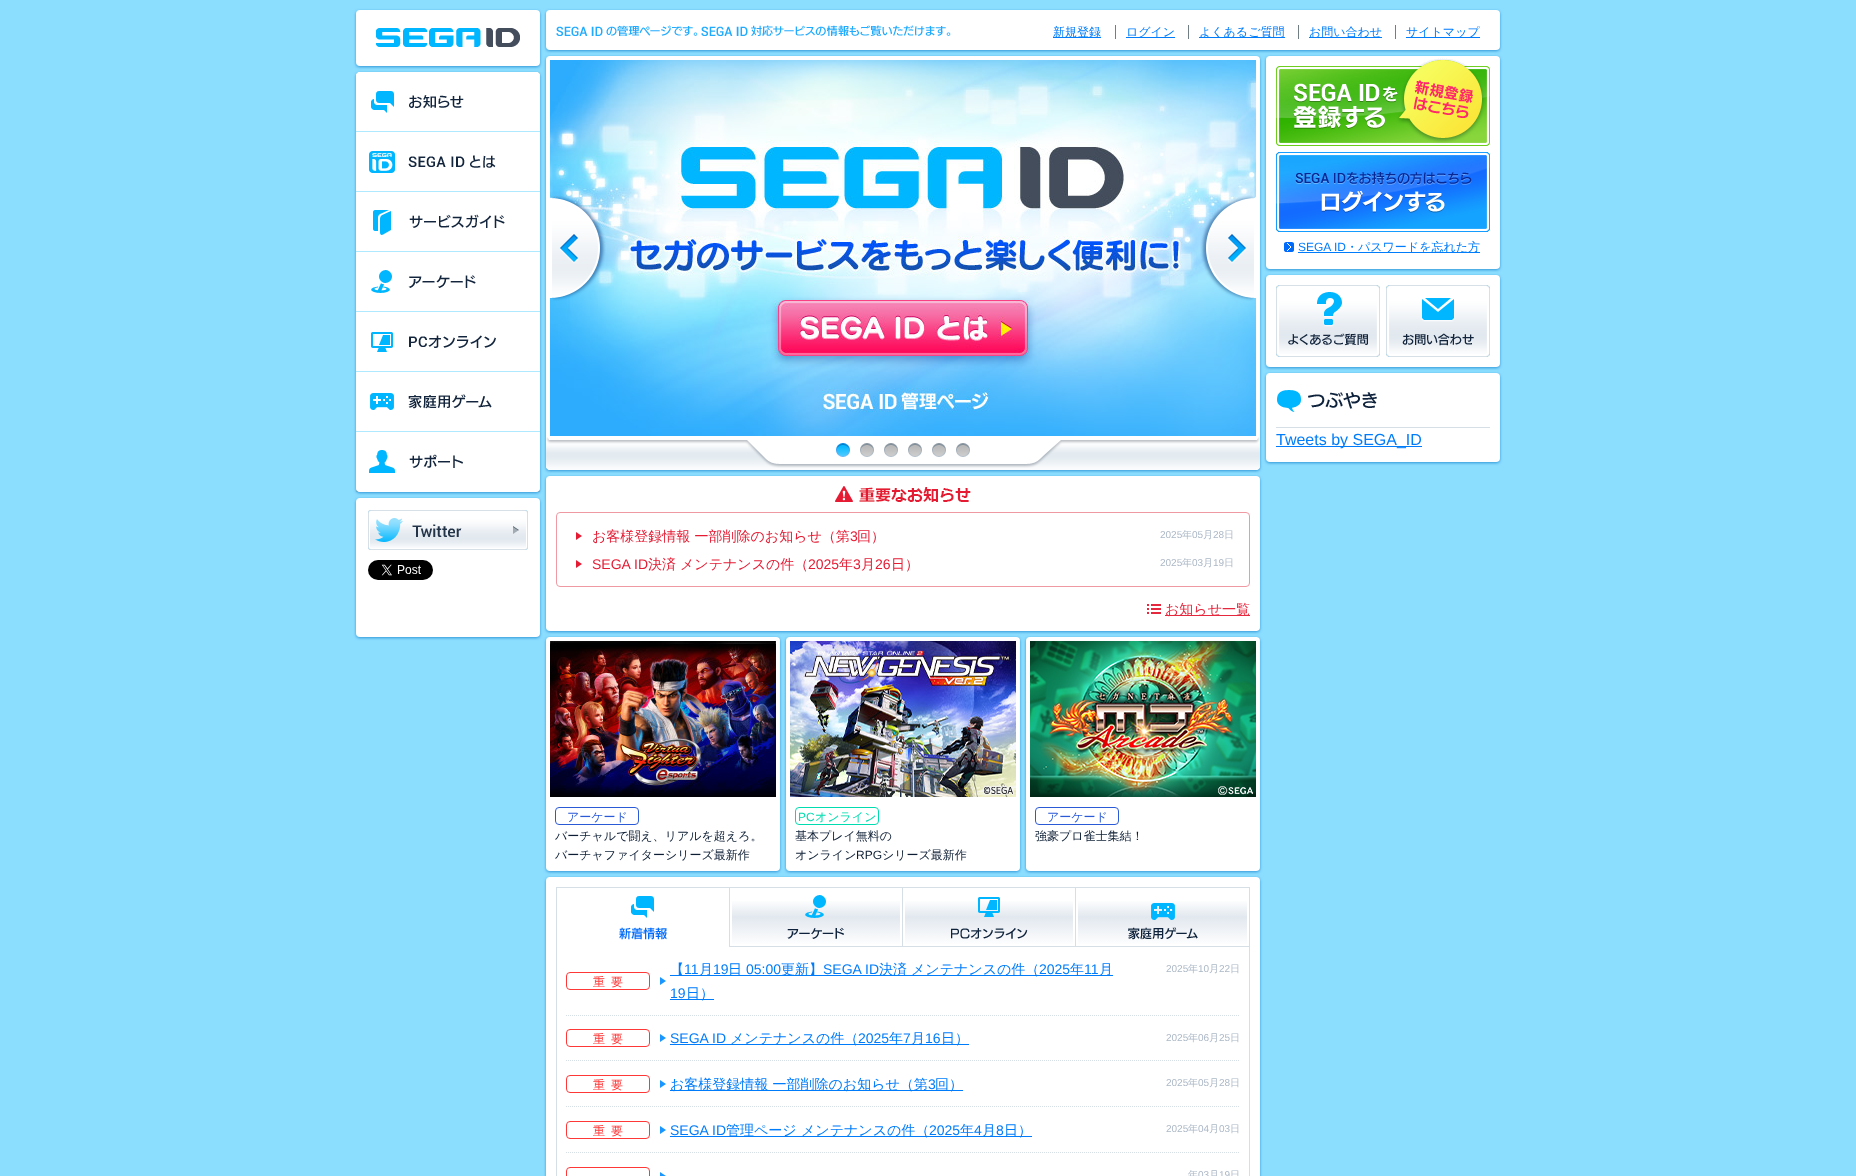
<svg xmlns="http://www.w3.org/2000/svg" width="1856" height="1176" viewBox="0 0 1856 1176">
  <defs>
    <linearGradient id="g1" gradientUnits="userSpaceOnUse" x1="816" y1="888" x2="816" y2="946"><stop offset="0" stop-color="rgb(255,255,255)"/><stop offset="0.2" stop-color="rgb(255,255,255)"/><stop offset="0.5" stop-color="rgb(226,232,239)"/><stop offset="1" stop-color="rgb(255,255,255)"/></linearGradient>
    <linearGradient id="g2" gradientUnits="userSpaceOnUse" x1="989" y1="888" x2="989" y2="946"><stop offset="0" stop-color="rgb(255,255,255)"/><stop offset="0.2" stop-color="rgb(255,255,255)"/><stop offset="0.5" stop-color="rgb(226,232,239)"/><stop offset="1" stop-color="rgb(255,255,255)"/></linearGradient>
    <linearGradient id="g3" gradientUnits="userSpaceOnUse" x1="1163" y1="888" x2="1163" y2="946"><stop offset="0" stop-color="rgb(255,255,255)"/><stop offset="0.2" stop-color="rgb(255,255,255)"/><stop offset="0.5" stop-color="rgb(226,232,239)"/><stop offset="1" stop-color="rgb(255,255,255)"/></linearGradient>
  </defs>
  <rect width="100%" height="100%" fill="rgb(140,222,255)"/>
  <rect x="356" y="11" width="184" height="56" rx="4" fill="rgb(46,150,216)" filter="blur(1.5px)"/>
  <rect x="356" y="10" width="184" height="56" rx="4" fill="rgb(255,255,255)"/>
  <image x="376" y="28" width="144" height="19" href="pic1.png"/>
  <rect x="356" y="73" width="184" height="420" rx="4" fill="rgb(46,150,216)" filter="blur(1.5px)"/>
  <rect x="356" y="72" width="184" height="420" rx="4" fill="rgb(255,255,255)"/>
  <image x="356" y="72" width="184" height="60" href="pic2.png"/>
  <image x="356" y="72" width="184" height="58" href="pic3.png"/>
  <image x="356" y="133" width="184" height="59" href="pic4.png"/>
  <image x="357" y="133" width="182" height="57" href="pic5.png"/>
  <image x="356" y="193" width="184" height="59" href="pic6.png"/>
  <image x="357" y="193" width="182" height="57" href="pic7.png"/>
  <image x="356" y="253" width="184" height="59" href="pic8.png"/>
  <image x="357" y="253" width="182" height="57" href="pic9.png"/>
  <image x="356" y="313" width="184" height="59" href="pic10.png"/>
  <image x="357" y="313" width="182" height="57" href="pic11.png"/>
  <image x="356" y="373" width="184" height="59" href="pic12.png"/>
  <image x="357" y="373" width="182" height="57" href="pic13.png"/>
  <image x="356" y="488" width="184" height="4" href="pic14.png"/>
  <image x="356" y="433" width="184" height="59" href="pic15.png"/>
  <rect x="356" y="499" width="184" height="139" rx="4" fill="rgb(46,150,216)" filter="blur(1.5px)"/>
  <rect x="356" y="498" width="184" height="139" rx="4" fill="rgb(255,255,255)"/>
  <image x="368" y="510" width="160" height="40" href="pic16.png"/>
  <image x="368" y="510" width="160" height="40" href="pic17.png"/>
  <image x="368" y="560" width="65" height="20" href="pic18.png"/>
  <rect x="1266" y="57" width="234" height="213" rx="4" fill="rgb(46,150,216)" filter="blur(1.5px)"/>
  <rect x="1266" y="56" width="234" height="213" rx="4" fill="rgb(255,255,255)"/>
  <rect x="546" y="57" width="714" height="414" rx="4" fill="rgb(46,150,216)" filter="blur(1.5px)"/>
  <rect x="546" y="56" width="714" height="414" rx="4" fill="rgb(255,255,255)"/>
  <rect x="546" y="11" width="954" height="40" rx="4" fill="rgb(46,150,216)" filter="blur(1.5px)"/>
  <rect x="546" y="10" width="954" height="40" rx="4" fill="rgb(255,255,255)"/>
  <image x="556" y="25" width="395" height="11" href="pic19.png"/>
  <rect x="1053" y="37" width="48" height="1" fill="rgb(0,124,250)"/>
  <text x="1053" y="36" font-family="WenQuanYi Zen Hei" font-size="12" font-weight="500" fill="rgb(0,124,250)">新規登録</text>
  <rect x="1126" y="37" width="49" height="1" fill="rgb(0,124,250)"/>
  <text x="1126" y="36" font-family="WenQuanYi Zen Hei" font-size="12" font-weight="500" fill="rgb(0,124,250)">ログイン</text>
  <rect x="1115" y="25" width="1" height="14" fill="rgb(113,127,132)"/>
  <rect x="1199" y="37" width="86" height="1" fill="rgb(0,124,250)"/>
  <text x="1199" y="36" font-family="WenQuanYi Zen Hei" font-size="12" font-weight="500" fill="rgb(0,124,250)">よくあるご質問</text>
  <rect x="1188" y="25" width="1" height="14" fill="rgb(113,127,132)"/>
  <rect x="1309" y="37" width="73" height="1" fill="rgb(0,124,250)"/>
  <text x="1309" y="36" font-family="WenQuanYi Zen Hei" font-size="12" font-weight="500" fill="rgb(0,124,250)">お問い合わせ</text>
  <rect x="1298" y="25" width="1" height="14" fill="rgb(113,127,132)"/>
  <rect x="1406" y="37" width="74" height="1" fill="rgb(0,124,250)"/>
  <text x="1406" y="36" font-family="WenQuanYi Zen Hei" font-size="12" font-weight="500" fill="rgb(0,124,250)">サイトマップ</text>
  <rect x="1395" y="25" width="1" height="14" fill="rgb(113,127,132)"/>
  <image x="1276" y="58" width="214" height="88" href="pic20.png"/>
  <image x="1276" y="59" width="214" height="87" href="pic21.png"/>
  <image x="1276" y="152" width="214" height="80" href="pic22.png"/>
  <image x="1276" y="152" width="214" height="80" href="pic23.png"/>
  <image x="1284" y="242" width="10" height="10" href="pic24.png"/>
  <text x="1298" y="251" font-family="Liberation Sans" font-size="12" fill="rgb(0,124,250)">SEGA ID</text>
  <rect x="1298" y="252" width="182" height="1" fill="rgb(0,124,250)"/>
  <text x="1346" y="251" font-family="WenQuanYi Zen Hei" font-size="12" font-weight="500" fill="rgb(0,124,250)">・パスワードを忘れた方</text>
  <rect x="1266" y="276" width="234" height="92" rx="4" fill="rgb(46,150,216)" filter="blur(1.5px)"/>
  <rect x="1266" y="275" width="234" height="92" rx="4" fill="rgb(255,255,255)"/>
  <image x="1276" y="285" width="104" height="72" href="pic25.png"/>
  <image x="1276" y="285" width="104" height="72" href="pic26.png"/>
  <image x="1386" y="285" width="104" height="72" href="pic27.png"/>
  <image x="1386" y="285" width="104" height="72" href="pic28.png"/>
  <rect x="1266" y="374" width="234" height="89" rx="4" fill="rgb(46,150,216)" filter="blur(1.5px)"/>
  <rect x="1266" y="373" width="234" height="89" rx="4" fill="rgb(255,255,255)"/>
  <rect x="1276" y="427" width="214" height="1" fill="rgb(214,222,230)"/>
  <image x="1277" y="390" width="100" height="22" href="pic29.png"/>
  <rect x="1276" y="446" width="146" height="1" fill="rgb(0,124,250)"/>
  <text x="1276" y="445" font-family="Liberation Sans" font-size="16" fill="rgb(0,124,250)">Tweets by SEGA_ID</text>
  <image x="546" y="437" width="714" height="33" href="pic30.png"/>
  <image x="550" y="60" width="706" height="376" href="pic31.png"/>
  <image x="550" y="195" width="56" height="106" href="pic32.png"/>
  <image x="1200" y="195" width="56" height="106" href="pic33.png"/>
  <image x="836" y="443" width="14" height="14" href="pic34.png"/>
  <image x="860" y="443" width="14" height="14" href="pic35.png"/>
  <image x="884" y="443" width="14" height="14" href="pic35.png"/>
  <image x="908" y="443" width="14" height="14" href="pic35.png"/>
  <image x="932" y="443" width="14" height="14" href="pic35.png"/>
  <image x="956" y="443" width="14" height="14" href="pic35.png"/>
  <rect x="546" y="477" width="714" height="155" rx="4" fill="rgb(46,150,216)" filter="blur(1.5px)"/>
  <rect x="546" y="476" width="714" height="155" rx="4" fill="rgb(255,255,255)"/>
  <image x="835" y="486" width="136" height="16" href="pic36.png"/>
  <rect x="556.5" y="512.5" width="693" height="74" rx="3.5" fill="none" stroke="rgb(239,153,163)"/>
  <image x="576" y="532" width="6" height="8" href="pic37.png"/>
  <text x="592" y="541" font-family="WenQuanYi Zen Hei" font-size="14" font-weight="500" fill="rgb(228,27,51)">お客様登録情報 一部削除のお知らせ（第</text>
  <text x="850" y="541" font-family="Liberation Sans" font-size="14" fill="rgb(228,27,51)">3</text>
  <text x="857" y="541" font-family="WenQuanYi Zen Hei" font-size="14" font-weight="500" fill="rgb(228,27,51)">回）</text>
  <text x="1160" y="538" font-family="Liberation Sans" font-size="10" fill="rgb(172,184,198)">2025</text>
  <text x="1182" y="538" font-family="WenQuanYi Zen Hei" font-size="10" font-weight="500" fill="rgb(172,184,198)">年</text>
  <text x="1192" y="538" font-family="Liberation Sans" font-size="10" fill="rgb(172,184,198)">05</text>
  <text x="1203" y="538" font-family="WenQuanYi Zen Hei" font-size="10" font-weight="500" fill="rgb(172,184,198)">月</text>
  <text x="1213" y="538" font-family="Liberation Sans" font-size="10" fill="rgb(172,184,198)">28</text>
  <text x="1224" y="538" font-family="WenQuanYi Zen Hei" font-size="10" font-weight="500" fill="rgb(172,184,198)">日</text>
  <image x="576" y="560" width="6" height="8" href="pic37.png"/>
  <text x="592" y="569" font-family="Liberation Sans" font-size="14" fill="rgb(228,27,51)">SEGA ID</text>
  <g font-family="WenQuanYi Zen Hei" font-size="14" font-weight="500" fill="rgb(228,27,51)">
    <text x="648" y="569">決済</text>
    <text x="680" y="569">メンテナンスの件（</text>
  </g>
  <text x="808" y="569" font-family="Liberation Sans" font-size="14" fill="rgb(228,27,51)">2025</text>
  <text x="839" y="569" font-family="WenQuanYi Zen Hei" font-size="14" font-weight="500" fill="rgb(228,27,51)">年</text>
  <text x="853" y="569" font-family="Liberation Sans" font-size="14" fill="rgb(228,27,51)">3</text>
  <text x="861" y="569" font-family="WenQuanYi Zen Hei" font-size="14" font-weight="500" fill="rgb(228,27,51)">月</text>
  <text x="875" y="569" font-family="Liberation Sans" font-size="14" fill="rgb(228,27,51)">26</text>
  <text x="891" y="569" font-family="WenQuanYi Zen Hei" font-size="14" font-weight="500" fill="rgb(228,27,51)">日）</text>
  <text x="1160" y="566" font-family="Liberation Sans" font-size="10" fill="rgb(172,184,198)">2025</text>
  <text x="1182" y="566" font-family="WenQuanYi Zen Hei" font-size="10" font-weight="500" fill="rgb(172,184,198)">年</text>
  <text x="1192" y="566" font-family="Liberation Sans" font-size="10" fill="rgb(172,184,198)">03</text>
  <text x="1203" y="566" font-family="WenQuanYi Zen Hei" font-size="10" font-weight="500" fill="rgb(172,184,198)">月</text>
  <text x="1213" y="566" font-family="Liberation Sans" font-size="10" fill="rgb(172,184,198)">19</text>
  <text x="1224" y="566" font-family="WenQuanYi Zen Hei" font-size="10" font-weight="500" fill="rgb(172,184,198)">日</text>
  <image x="1147" y="604" width="14" height="10" href="pic38.png"/>
  <rect x="1165" y="615" width="85" height="1" fill="rgb(230,40,63)"/>
  <text x="1165" y="614" font-family="WenQuanYi Zen Hei" font-size="14" font-weight="500" fill="rgb(230,40,63)">お知らせ一覧</text>
  <rect x="546" y="878" width="714" height="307" rx="4" fill="rgb(46,150,216)" filter="blur(1.5px)"/>
  <rect x="546" y="877" width="714" height="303" rx="4" fill="rgb(255,255,255)"/>
  <rect x="546" y="638" width="234" height="234" rx="4" fill="rgb(46,150,216)" filter="blur(1.5px)"/>
  <rect x="546" y="637" width="234" height="234" rx="4" fill="rgb(255,255,255)"/>
  <image x="550" y="641" width="226" height="156" href="pic39.png"/>
  <rect x="555.5" y="807.5" width="83" height="17" rx="3.5" fill="none" stroke="rgb(42,90,214)"/>
  <text x="567" y="821" font-family="WenQuanYi Zen Hei" font-size="12" font-weight="500" fill="rgb(42,90,214)">アーケード</text>
  <g font-family="WenQuanYi Zen Hei" font-size="12" font-weight="500" fill="rgb(13,30,52)">
    <text>
      <tspan x="555" y="840">バーチャルで闘え、リアルを超えろ。</tspan>
      <tspan x="555" y="859">バーチャファイターシリーズ最新作</tspan>
    </text>
  </g>
  <rect x="786" y="638" width="234" height="234" rx="4" fill="rgb(46,150,216)" filter="blur(1.5px)"/>
  <rect x="786" y="637" width="234" height="234" rx="4" fill="rgb(255,255,255)"/>
  <image x="790" y="641" width="226" height="156" href="pic40.png"/>
  <rect x="795.5" y="807.5" width="83" height="17" rx="3.5" fill="none" stroke="rgb(0,220,176)"/>
  <text x="798" y="821" font-family="Liberation Sans" font-size="12" fill="rgb(0,220,176)">PC</text>
  <text x="815" y="821" font-family="WenQuanYi Zen Hei" font-size="12" font-weight="500" fill="rgb(0,220,176)">オンライン</text>
  <g font-family="WenQuanYi Zen Hei" font-size="12" font-weight="500" fill="rgb(13,30,52)">
    <text>
      <tspan x="795" y="840">基本プレイ無料の</tspan>
      <tspan x="795" y="859">オンライン</tspan>
    </text>
  </g>
  <text x="856" y="859" font-family="Liberation Sans" font-size="12" fill="rgb(13,30,52)">RPG</text>
  <text x="882" y="859" font-family="WenQuanYi Zen Hei" font-size="12" font-weight="500" fill="rgb(13,30,52)">シリーズ最新作</text>
  <rect x="1026" y="638" width="234" height="234" rx="4" fill="rgb(46,150,216)" filter="blur(1.5px)"/>
  <rect x="1026" y="637" width="234" height="234" rx="4" fill="rgb(255,255,255)"/>
  <image x="1030" y="641" width="226" height="156" href="pic41.png"/>
  <rect x="1035.5" y="807.5" width="83" height="17" rx="3.5" fill="none" stroke="rgb(42,90,214)"/>
  <text x="1047" y="821" font-family="WenQuanYi Zen Hei" font-size="12" font-weight="500" fill="rgb(42,90,214)">アーケード</text>
  <text x="1035" y="840" font-family="WenQuanYi Zen Hei" font-size="12" font-weight="500" fill="rgb(13,30,52)">強豪プロ雀士集結！</text>
  <rect x="556" y="887" width="694" height="1" fill="rgb(214,222,230)"/>
  <rect x="1249" y="887" width="1" height="60" fill="rgb(214,222,230)"/>
  <rect x="556" y="887" width="1" height="60" fill="rgb(214,222,230)"/>
  <rect x="729" y="888" width="1" height="59" fill="rgb(214,222,230)"/>
  <image x="619" y="896" width="48" height="44" href="pic42.png"/>
  <rect x="732" y="901" width="168" height="43" fill="url(#g1)"/>
  <rect x="902" y="888" width="1" height="59" fill="rgb(214,222,230)"/>
  <rect x="730" y="946" width="173" height="1" fill="rgb(214,222,230)"/>
  <image x="787" y="895" width="57" height="44" href="pic43.png"/>
  <rect x="905" y="901" width="168" height="43" fill="url(#g2)"/>
  <rect x="1075" y="888" width="1" height="59" fill="rgb(214,222,230)"/>
  <rect x="903" y="946" width="346" height="1" fill="rgb(214,222,230)"/>
  <image x="951" y="897" width="77" height="42" href="pic44.png"/>
  <rect x="1078" y="901" width="169" height="43" fill="url(#g3)"/>
  <image x="1128" y="903" width="70" height="37" href="pic45.png"/>
  <path d="M556 947H1250V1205C1250 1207 1248 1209 1246 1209H560C558 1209 556 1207 556 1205ZM557 947H1249V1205C1249 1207 1248 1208 1246 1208H560C558 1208 557 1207 557 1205Z" fill="rgb(214,222,230)" fill-rule="evenodd"/>
  <rect x="566.5" y="972.5" width="83" height="17" rx="3.5" fill="none" stroke="rgb(254,55,55)"/>
  <g font-family="WenQuanYi Zen Hei" font-size="12" font-weight="500" fill="rgb(254,55,55)">
    <text x="593" y="986">重</text>
    <text x="611" y="986">要</text>
  </g>
  <image x="660" y="977" width="6" height="8" href="pic46.png"/>
  <rect x="670" y="975" width="443" height="1" fill="rgb(0,124,250)"/>
  <text x="670" y="974" font-family="WenQuanYi Zen Hei" font-size="14" font-weight="500" fill="rgb(0,124,250)">【</text>
  <text x="684" y="974" font-family="Liberation Sans" font-size="14" fill="rgb(0,124,250)">11</text>
  <text x="699" y="974" font-family="WenQuanYi Zen Hei" font-size="14" font-weight="500" fill="rgb(0,124,250)">月</text>
  <text x="713" y="974" font-family="Liberation Sans" font-size="14" fill="rgb(0,124,250)">19</text>
  <text x="728" y="974" font-family="WenQuanYi Zen Hei" font-size="14" font-weight="500" fill="rgb(0,124,250)">日</text>
  <text x="746" y="974" font-family="Liberation Sans" font-size="14" fill="rgb(0,124,250)">05:00</text>
  <text x="781" y="974" font-family="WenQuanYi Zen Hei" font-size="14" font-weight="500" fill="rgb(0,124,250)">更新】</text>
  <text x="823" y="974" font-family="Liberation Sans" font-size="14" fill="rgb(0,124,250)">SEGA ID</text>
  <g font-family="WenQuanYi Zen Hei" font-size="14" font-weight="500" fill="rgb(0,124,250)">
    <text x="879" y="974">決済</text>
    <text x="911" y="974">メンテナンスの件（</text>
  </g>
  <text x="1039" y="974" font-family="Liberation Sans" font-size="14" fill="rgb(0,124,250)">2025</text>
  <text x="1070" y="974" font-family="WenQuanYi Zen Hei" font-size="14" font-weight="500" fill="rgb(0,124,250)">年</text>
  <text x="1084" y="974" font-family="Liberation Sans" font-size="14" fill="rgb(0,124,250)">11</text>
  <text x="1099" y="974" font-family="WenQuanYi Zen Hei" font-size="14" font-weight="500" fill="rgb(0,124,250)">月</text>
  <text x="670" y="998" font-family="Liberation Sans" font-size="14" fill="rgb(0,124,250)">19</text>
  <rect x="670" y="999" width="44" height="1" fill="rgb(0,124,250)"/>
  <text x="686" y="998" font-family="WenQuanYi Zen Hei" font-size="14" font-weight="500" fill="rgb(0,124,250)">日）</text>
  <text x="1166" y="972" font-family="Liberation Sans" font-size="10" fill="rgb(172,184,198)">2025</text>
  <text x="1188" y="972" font-family="WenQuanYi Zen Hei" font-size="10" font-weight="500" fill="rgb(172,184,198)">年</text>
  <text x="1198" y="972" font-family="Liberation Sans" font-size="10" fill="rgb(172,184,198)">10</text>
  <text x="1209" y="972" font-family="WenQuanYi Zen Hei" font-size="10" font-weight="500" fill="rgb(172,184,198)">月</text>
  <text x="1219" y="972" font-family="Liberation Sans" font-size="10" fill="rgb(172,184,198)">22</text>
  <text x="1230" y="972" font-family="WenQuanYi Zen Hei" font-size="10" font-weight="500" fill="rgb(172,184,198)">日</text>
  <path d="M566 1015.5H1240" fill="none" stroke="rgb(214,222,230)" stroke-dasharray="1 1"/>
  <rect x="566.5" y="1029.5" width="83" height="17" rx="3.5" fill="none" stroke="rgb(254,55,55)"/>
  <g font-family="WenQuanYi Zen Hei" font-size="12" font-weight="500" fill="rgb(254,55,55)">
    <text x="593" y="1043">重</text>
    <text x="611" y="1043">要</text>
  </g>
  <image x="660" y="1034" width="6" height="8" href="pic46.png"/>
  <text x="670" y="1043" font-family="Liberation Sans" font-size="14" fill="rgb(0,124,250)">SEGA ID</text>
  <rect x="670" y="1044" width="299" height="1" fill="rgb(0,124,250)"/>
  <text x="730" y="1043" font-family="WenQuanYi Zen Hei" font-size="14" font-weight="500" fill="rgb(0,124,250)">メンテナンスの件（</text>
  <text x="858" y="1043" font-family="Liberation Sans" font-size="14" fill="rgb(0,124,250)">2025</text>
  <text x="889" y="1043" font-family="WenQuanYi Zen Hei" font-size="14" font-weight="500" fill="rgb(0,124,250)">年</text>
  <text x="903" y="1043" font-family="Liberation Sans" font-size="14" fill="rgb(0,124,250)">7</text>
  <text x="911" y="1043" font-family="WenQuanYi Zen Hei" font-size="14" font-weight="500" fill="rgb(0,124,250)">月</text>
  <text x="925" y="1043" font-family="Liberation Sans" font-size="14" fill="rgb(0,124,250)">16</text>
  <text x="941" y="1043" font-family="WenQuanYi Zen Hei" font-size="14" font-weight="500" fill="rgb(0,124,250)">日）</text>
  <text x="1166" y="1041" font-family="Liberation Sans" font-size="10" fill="rgb(172,184,198)">2025</text>
  <text x="1188" y="1041" font-family="WenQuanYi Zen Hei" font-size="10" font-weight="500" fill="rgb(172,184,198)">年</text>
  <text x="1198" y="1041" font-family="Liberation Sans" font-size="10" fill="rgb(172,184,198)">06</text>
  <text x="1209" y="1041" font-family="WenQuanYi Zen Hei" font-size="10" font-weight="500" fill="rgb(172,184,198)">月</text>
  <text x="1219" y="1041" font-family="Liberation Sans" font-size="10" fill="rgb(172,184,198)">25</text>
  <text x="1230" y="1041" font-family="WenQuanYi Zen Hei" font-size="10" font-weight="500" fill="rgb(172,184,198)">日</text>
  <path d="M566 1060.5H1240" fill="none" stroke="rgb(214,222,230)" stroke-dasharray="1 1"/>
  <rect x="566.5" y="1075.5" width="83" height="17" rx="3.5" fill="none" stroke="rgb(254,55,55)"/>
  <g font-family="WenQuanYi Zen Hei" font-size="12" font-weight="500" fill="rgb(254,55,55)">
    <text x="593" y="1089">重</text>
    <text x="611" y="1089">要</text>
  </g>
  <image x="660" y="1080" width="6" height="8" href="pic46.png"/>
  <rect x="670" y="1090" width="293" height="1" fill="rgb(0,124,250)"/>
  <text x="670" y="1089" font-family="WenQuanYi Zen Hei" font-size="14" font-weight="500" fill="rgb(0,124,250)">お客様登録情報 一部削除のお知らせ（第</text>
  <text x="928" y="1089" font-family="Liberation Sans" font-size="14" fill="rgb(0,124,250)">3</text>
  <text x="935" y="1089" font-family="WenQuanYi Zen Hei" font-size="14" font-weight="500" fill="rgb(0,124,250)">回）</text>
  <text x="1166" y="1086" font-family="Liberation Sans" font-size="10" fill="rgb(172,184,198)">2025</text>
  <text x="1188" y="1086" font-family="WenQuanYi Zen Hei" font-size="10" font-weight="500" fill="rgb(172,184,198)">年</text>
  <text x="1198" y="1086" font-family="Liberation Sans" font-size="10" fill="rgb(172,184,198)">05</text>
  <text x="1209" y="1086" font-family="WenQuanYi Zen Hei" font-size="10" font-weight="500" fill="rgb(172,184,198)">月</text>
  <text x="1219" y="1086" font-family="Liberation Sans" font-size="10" fill="rgb(172,184,198)">28</text>
  <text x="1230" y="1086" font-family="WenQuanYi Zen Hei" font-size="10" font-weight="500" fill="rgb(172,184,198)">日</text>
  <path d="M566 1106.5H1240" fill="none" stroke="rgb(214,222,230)" stroke-dasharray="1 1"/>
  <rect x="566.5" y="1121.5" width="83" height="17" rx="3.5" fill="none" stroke="rgb(254,55,55)"/>
  <g font-family="WenQuanYi Zen Hei" font-size="12" font-weight="500" fill="rgb(254,55,55)">
    <text x="593" y="1135">重</text>
    <text x="611" y="1135">要</text>
  </g>
  <image x="660" y="1126" width="6" height="8" href="pic46.png"/>
  <text x="670" y="1135" font-family="Liberation Sans" font-size="14" fill="rgb(0,124,250)">SEGA ID</text>
  <rect x="670" y="1136" width="362" height="1" fill="rgb(0,124,250)"/>
  <g font-family="WenQuanYi Zen Hei" font-size="14" font-weight="500" fill="rgb(0,124,250)">
    <text x="726" y="1135">管理ページ</text>
    <text x="801" y="1135">メンテナンスの件（</text>
  </g>
  <text x="929" y="1135" font-family="Liberation Sans" font-size="14" fill="rgb(0,124,250)">2025</text>
  <text x="960" y="1135" font-family="WenQuanYi Zen Hei" font-size="14" font-weight="500" fill="rgb(0,124,250)">年</text>
  <text x="974" y="1135" font-family="Liberation Sans" font-size="14" fill="rgb(0,124,250)">4</text>
  <text x="982" y="1135" font-family="WenQuanYi Zen Hei" font-size="14" font-weight="500" fill="rgb(0,124,250)">月</text>
  <text x="996" y="1135" font-family="Liberation Sans" font-size="14" fill="rgb(0,124,250)">8</text>
  <text x="1004" y="1135" font-family="WenQuanYi Zen Hei" font-size="14" font-weight="500" fill="rgb(0,124,250)">日）</text>
  <text x="1166" y="1132" font-family="Liberation Sans" font-size="10" fill="rgb(172,184,198)">2025</text>
  <text x="1188" y="1132" font-family="WenQuanYi Zen Hei" font-size="10" font-weight="500" fill="rgb(172,184,198)">年</text>
  <text x="1198" y="1132" font-family="Liberation Sans" font-size="10" fill="rgb(172,184,198)">04</text>
  <text x="1209" y="1132" font-family="WenQuanYi Zen Hei" font-size="10" font-weight="500" fill="rgb(172,184,198)">月</text>
  <text x="1219" y="1132" font-family="Liberation Sans" font-size="10" fill="rgb(172,184,198)">03</text>
  <text x="1230" y="1132" font-family="WenQuanYi Zen Hei" font-size="10" font-weight="500" fill="rgb(172,184,198)">日</text>
  <path d="M566 1152.5H1240" fill="none" stroke="rgb(214,222,230)" stroke-dasharray="1 1"/>
  <rect x="566.5" y="1167.5" width="83" height="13" rx="3.5" fill="none" stroke="rgb(254,55,55)"/>
  <image x="660" y="1172" width="6" height="4" href="pic47.png"/>
  <text x="1188" y="1178" font-family="WenQuanYi Zen Hei" font-size="10" font-weight="500" fill="rgb(172,184,198)">年</text>
  <text x="1198" y="1178" font-family="Liberation Sans" font-size="10" fill="rgb(172,184,198)">03</text>
  <text x="1209" y="1178" font-family="WenQuanYi Zen Hei" font-size="10" font-weight="500" fill="rgb(172,184,198)">月</text>
  <text x="1219" y="1178" font-family="Liberation Sans" font-size="10" fill="rgb(172,184,198)">19</text>
  <text x="1230" y="1178" font-family="WenQuanYi Zen Hei" font-size="10" font-weight="500" fill="rgb(172,184,198)">日</text>
</svg>
